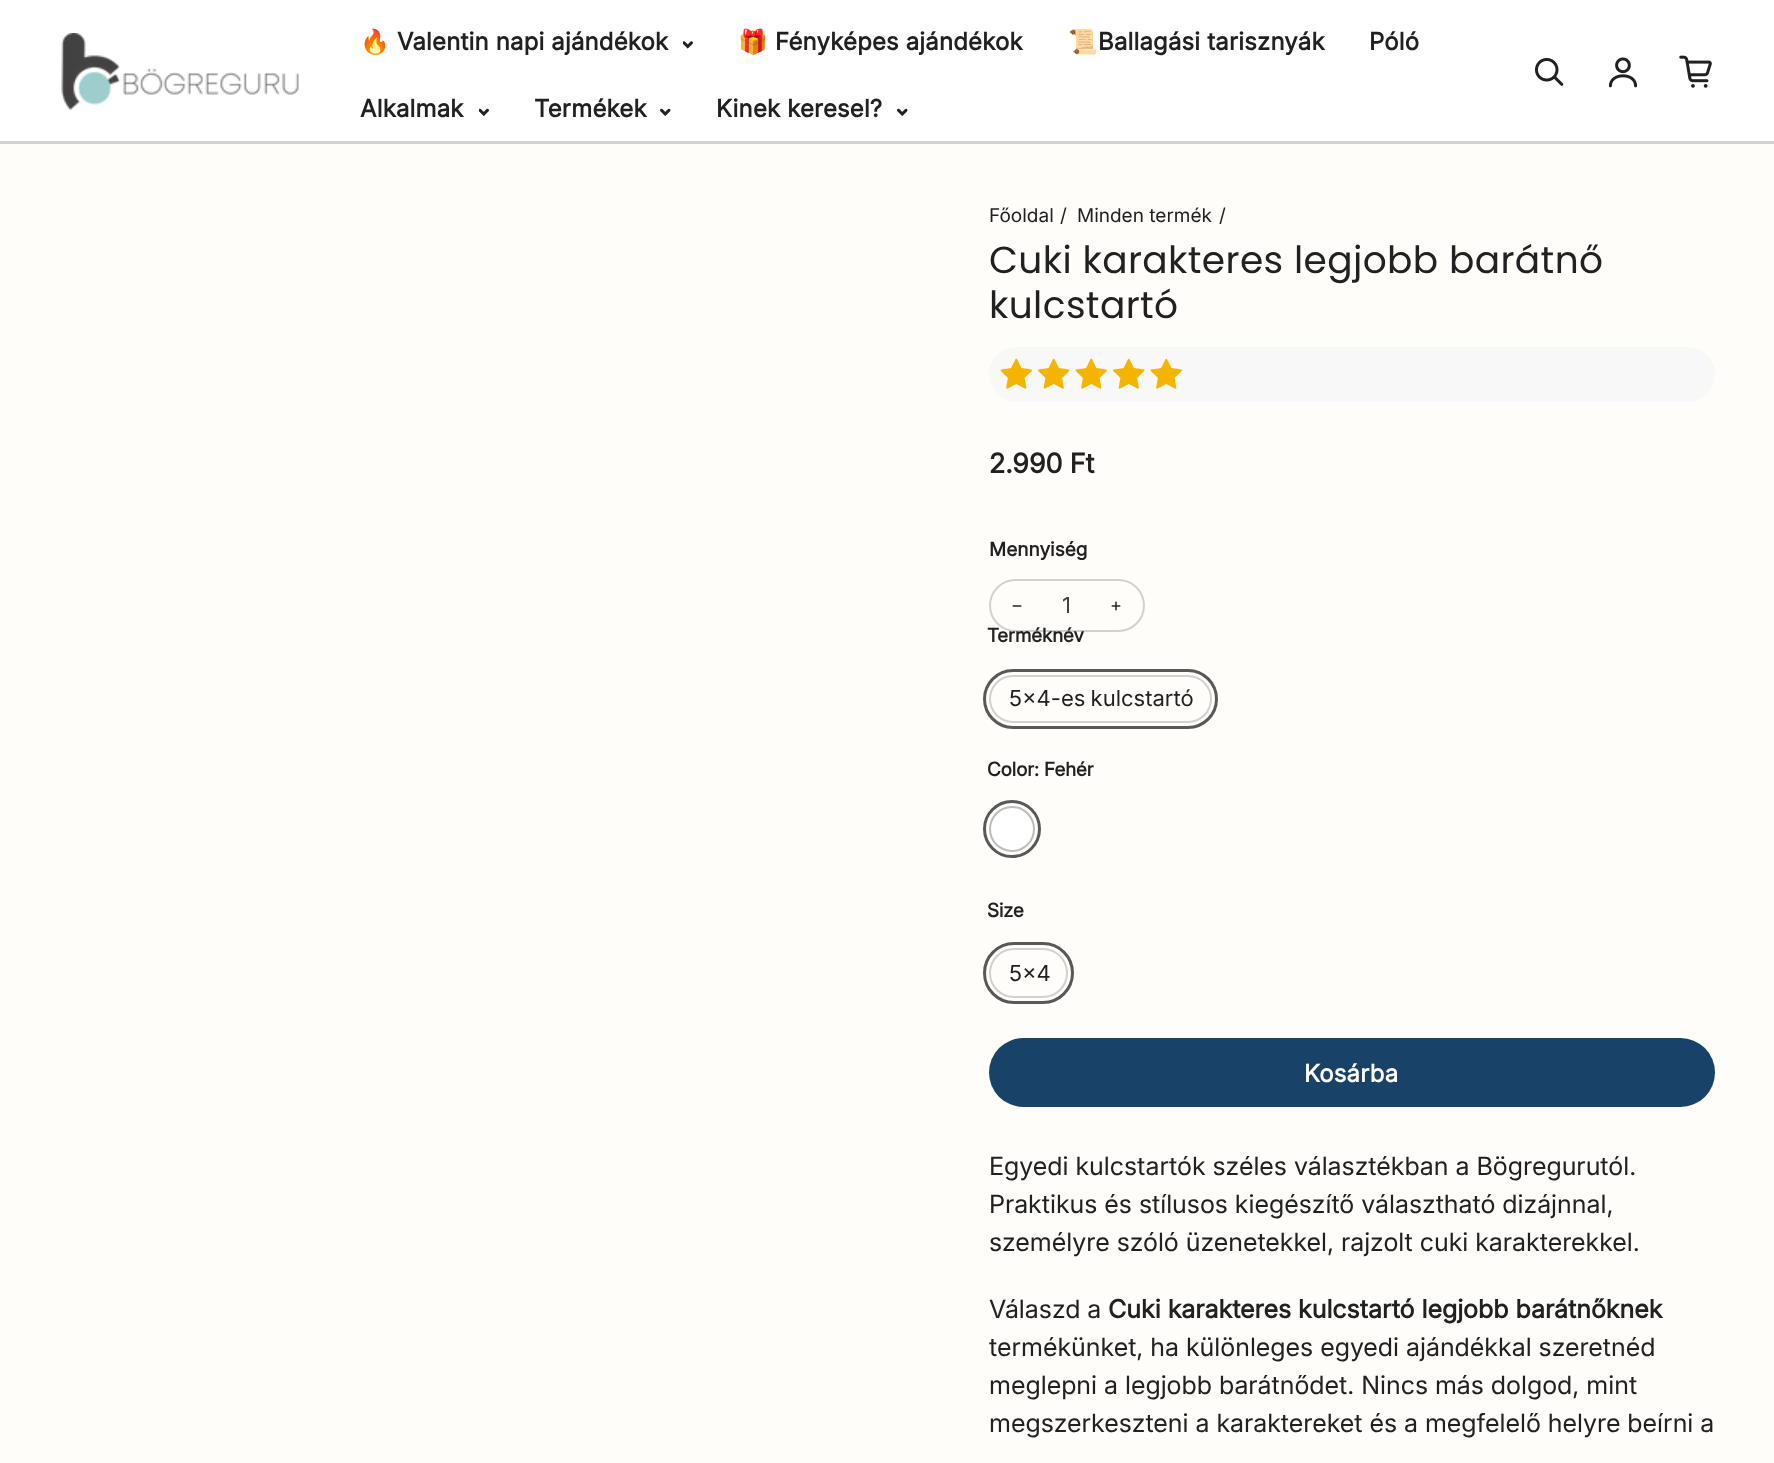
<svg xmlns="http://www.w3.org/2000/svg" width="1774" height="1463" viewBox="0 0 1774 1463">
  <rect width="100%" height="100%" fill="rgb(255,255,255)"/>
  <rect x="0" y="141" width="1774" height="2" fill="rgb(211,211,211)"/>
  <image x="61" y="33" width="238" height="77" href="pic1.png"/>
  <text x="360" y="50" font-family="Noto Color Emoji" font-size="24" font-weight="bold" letter-spacing="0.25" fill="rgb(33,33,33)">🔥</text>
  <text x="397" y="50" font-family="'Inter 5'" font-size="24" font-weight="bold" letter-spacing="0.25" fill="rgb(33,33,33)">Valentin napi ajándékok</text>
  <image x="683" y="41" width="10" height="8" href="pic2.png"/>
  <text x="738" y="50" font-family="Noto Color Emoji" font-size="24" font-weight="bold" letter-spacing="0.25" fill="rgb(33,33,33)">🎁</text>
  <text x="775" y="50" font-family="'Inter 5'" font-size="24" font-weight="bold" letter-spacing="0.25" fill="rgb(33,33,33)">Fényképes ajándékok</text>
  <text x="1068" y="50" font-family="Noto Color Emoji" font-size="24" font-weight="bold" letter-spacing="0.25" fill="rgb(33,33,33)">📜</text>
  <g font-family="'Inter 5'" font-size="24" font-weight="bold" letter-spacing="0.25" fill="rgb(33,33,33)">
    <text x="1098" y="50">Ballagási tarisznyák</text>
    <text x="1369" y="50">Póló</text>
    <text x="360" y="117">Alkalmak</text>
  </g>
  <image x="479" y="108" width="10" height="8" href="pic3.png"/>
  <text x="534" y="117" font-family="'Inter 5'" font-size="24" font-weight="bold" letter-spacing="0.25" fill="rgb(33,33,33)">Termékek</text>
  <image x="660" y="108" width="11" height="8" href="pic4.png"/>
  <text x="716" y="117" font-family="'Inter 5'" font-size="24" font-weight="bold" letter-spacing="0.25" fill="rgb(33,33,33)">Kinek keresel?</text>
  <image x="897" y="108" width="11" height="8" href="pic4.png"/>
  <image x="1534" y="58" width="30" height="28" href="pic5.png"/>
  <image x="1608" y="57" width="30" height="31" href="pic6.png"/>
  <image x="1679" y="55" width="33" height="33" href="pic7.png"/>
  <rect x="0" y="144" width="1774" height="1319" fill="rgb(255,253,250)"/>
  <rect x="0" y="143" width="1774" height="1" fill="rgb(211,209,207)"/>
  <g font-family="Inter" font-size="19" fill="rgb(33,33,33)">
    <text x="989" y="222">Főoldal</text>
    <text x="1060" y="222">/</text>
    <text x="1077" y="222">Minden termék</text>
    <text x="1219" y="222">/</text>
  </g>
  <g font-family="Poppins" font-size="37.5" letter-spacing="0.4" fill="rgb(33,33,33)">
    <text>
      <tspan x="989" y="273">Cuki karakteres legjobb barátnő</tspan>
      <tspan x="989" y="318">kulcstartó</tspan>
    </text>
  </g>
  <rect x="989" y="347" width="726" height="55" rx="27.5" fill="rgb(248,248,248)"/>
  <image x="1000" y="358" width="32" height="31" href="pic8.png"/>
  <image x="1038" y="358" width="32" height="31" href="pic9.png"/>
  <image x="1075" y="358" width="32" height="31" href="pic8.png"/>
  <image x="1113" y="358" width="32" height="31" href="pic9.png"/>
  <image x="1150" y="358" width="32" height="31" href="pic8.png"/>
  <text x="989" y="473" font-family="Inter" font-size="27" font-weight="bold" fill="rgb(33,33,33)">2.990 Ft</text>
  <text x="989" y="556" font-family="'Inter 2'" font-size="19" font-weight="bold" fill="rgb(33,33,33)">Mennyiség</text>
  <image x="1012" y="605" width="10" height="2" href="pic10.png"/>
  <image x="1111" y="601" width="10" height="10" href="pic11.png"/>
  <text x="987" y="642" font-family="'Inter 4'" font-size="19" font-weight="bold" fill="rgb(33,33,33)">Terméknév</text>
  <rect x="990" y="580" width="154" height="51" rx="25.5" fill="none" stroke="rgba(33,33,33,0.2)" stroke-width="2"/>
  <text x="1062" y="613" font-family="Inter" font-size="22" fill="rgb(66,66,66)">1</text>
  <rect x="990" y="676" width="221" height="46" rx="23" fill="none" stroke="rgb(211,209,207)" stroke-width="2"/>
  <rect x="984.5" y="670.5" width="232" height="57" rx="28.5" fill="none" stroke="rgb(89,88,87)" stroke-width="3"/>
  <text x="1009" y="706" word-spacing="-1" font-family="Inter" font-size="22" fill="rgb(33,33,33)">5x4-es kulcstartó</text>
  <text x="987" y="776" font-family="'Inter 4'" font-size="19" font-weight="bold" fill="rgb(33,33,33)">Color: Fehér</text>
  <circle cx="1012" cy="829" r="22" fill="rgb(255,255,255)" stroke="rgb(188,188,188)" stroke-width="2"/>
  <circle cx="1012" cy="829" r="27.5" fill="none" stroke="rgb(89,88,87)" stroke-width="3"/>
  <text x="987" y="917" font-family="'Inter 4'" font-size="19" font-weight="bold" fill="rgb(33,33,33)">Size</text>
  <rect x="990" y="949" width="77" height="48" rx="24" fill="none" stroke="rgb(211,209,207)" stroke-width="2"/>
  <rect x="984.5" y="943.5" width="88" height="59" rx="29.5" fill="none" stroke="rgb(89,88,87)" stroke-width="3"/>
  <text x="1009" y="981" font-family="Inter" font-size="22" fill="rgb(33,33,33)">5x4</text>
  <rect x="989" y="1038" width="726" height="69" rx="34.5" fill="rgb(25,66,105)"/>
  <text x="1304" y="1082" font-family="'Inter 5'" font-size="24" font-weight="bold" letter-spacing="0.25" fill="rgb(255,253,250)">Kosárba</text>
  <g font-family="'Inter 2'" font-size="25.2" fill="rgb(33,33,33)">
    <text>
      <tspan x="989" y="1175">Egyedi kulcstartók széles választékban a Bögregurutól.</tspan>
      <tspan x="989" y="1213">Praktikus és stílusos kiegészítő választható dizájnnal,</tspan>
      <tspan x="989" y="1251">személyre szóló üzenetekkel, rajzolt cuki karakterekkel.</tspan>
    </text>
    <text x="989" y="1318">Válaszd a</text>
  </g>
  <text x="1108" y="1318" font-family="'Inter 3'" font-size="25.2" font-weight="bold" fill="rgb(33,33,33)">Cuki karakteres kulcstartó legjobb barátnőknek</text>
  <g font-family="'Inter 2'" font-size="25.2" fill="rgb(33,33,33)">
    <text>
      <tspan x="989" y="1356">termékünket, ha különleges egyedi ajándékkal szeretnéd</tspan>
      <tspan x="989" y="1394">meglepni a legjobb barátnődet. Nincs más dolgod, mint</tspan>
      <tspan x="989" y="1432">megszerkeszteni a karaktereket és a megfelelő helyre beírni a</tspan>
    </text>
  </g>
</svg>
